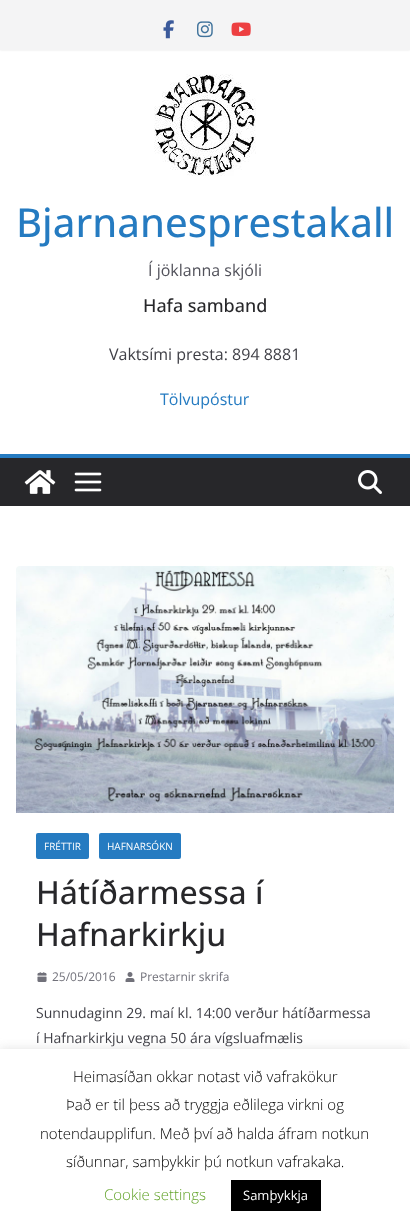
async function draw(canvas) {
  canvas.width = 410;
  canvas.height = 1228;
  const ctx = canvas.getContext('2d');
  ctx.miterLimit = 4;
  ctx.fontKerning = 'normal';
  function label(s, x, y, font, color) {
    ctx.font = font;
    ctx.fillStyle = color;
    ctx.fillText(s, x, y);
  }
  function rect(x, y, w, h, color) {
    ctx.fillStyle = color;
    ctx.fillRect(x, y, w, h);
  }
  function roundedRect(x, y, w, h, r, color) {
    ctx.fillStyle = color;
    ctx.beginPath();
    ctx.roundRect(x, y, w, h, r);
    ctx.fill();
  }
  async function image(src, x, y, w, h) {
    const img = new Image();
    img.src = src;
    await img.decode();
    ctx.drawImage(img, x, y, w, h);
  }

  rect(0, 0, 410, 1228, '#fff');
  ctx.fillStyle = '#0000001a';
  ctx.filter = 'blur(1px)';
  ctx.beginPath();
  ctx.rect(0, 0, 410, 50);
  ctx.fill();
  ctx.filter = 'none';
  rect(0, 0, 410, 50, '#f4f4f5');
  await image('assets/img1.png', 163, 20, 11, 19);
  await image('assets/img2.png', 197, 21, 16, 17);
  await image('assets/img3.png', 231, 22, 20, 14);
  await image('assets/img4.png', 154, 74, 102, 102);
  label('Bjarnanesprestakall', 16, 237, '500 40px Open Sans', '#257bc1');
  label('Í jöklanna skjóli', 148, 276, '16px Open Sans', '#52525b');
  label('Hafa samband', 143, 312, '500 18px Open Sans', '#27272a');
  label('Vaktsími presta: 894 8881', 109, 360, '16px Open Sans', '#3f3f46');
  label('Tölvupóstur', 160, 405, '16px Open Sans', '#257bc1');
  rect(0, 458, 410, 48, '#27272a');
  rect(0, 454, 410, 4, '#257bc1');
  await image('assets/img5.png', 24, 470, 32, 24);
  await image('assets/img6.png', 74, 472, 28, 20);
  await image('assets/img7.png', 358, 470, 24, 24);
  await image('assets/img8.png', 16, 566, 378, 247);
  roundedRect(36, 833, 53, 26, 2, '#257bc1');
  label('FRÉTTIR', 44, 850, '10px Open Sans', '#fff');
  roundedRect(99, 833, 82, 26, 2, '#257bc1');
  label('HAFNARSÓKN', 107, 850, '10px Open Sans', '#fff');
  label('Hátíðarmessa í', 36, 904, '500 32px Open Sans', '#27272a');
  label('Hafnarkirkju', 36, 946, '500 32px Open Sans', '#27272a');
  await image('assets/img9.png', 37, 972, 10, 10);
  label('25/05/2016', 52, 981, '12px Open Sans', '#71717a');
  await image('assets/img10.png', 125, 972, 10, 10);
  label('Prestarnir skrifa', 140, 981, '12px Open Sans', '#71717a');
  label('Sunnudaginn 29. maí kl. 14:00 verður hátíðarmessa', 36, 1018, '14px Open Sans', '#3f3f46');
  label('í Hafnarkirkju vegna 50 ára vígsluafmælis', 36, 1043, '14px Open Sans', '#3f3f46');
  ctx.fillStyle = '#acabab4d';
  ctx.filter = 'blur(5px)';
  ctx.beginPath();
  ctx.rect(0, 1048, 410, 179);
  ctx.fill();
  ctx.filter = 'none';
  rect(0, 1049, 410, 179, '#fff');
  label('Heimasíðan okkar notast við vafrakökur', 73, 1082, '300 15px Open Sans', '#000');
  label('Það er til þess að tryggja eðlilega virkni og', 66, 1110, '300 15px Open Sans', '#000');
  label('notendaupplifun. Með því að halda áfram notkun', 40, 1139, '300 15px Open Sans', '#000');
  label('síðunnar, samþykkir þú notkun vafrakaka.', 66, 1167, '300 15px Open Sans', '#000');
  label('Cookie settings', 104, 1200, '300 15px Open Sans', '#62a329');
  rect(231, 1180, 90, 31, '#000');
  label('Samþykkja', 243, 1200, '13px Open Sans', '#fff');
}

draw(document.querySelector('canvas'));
